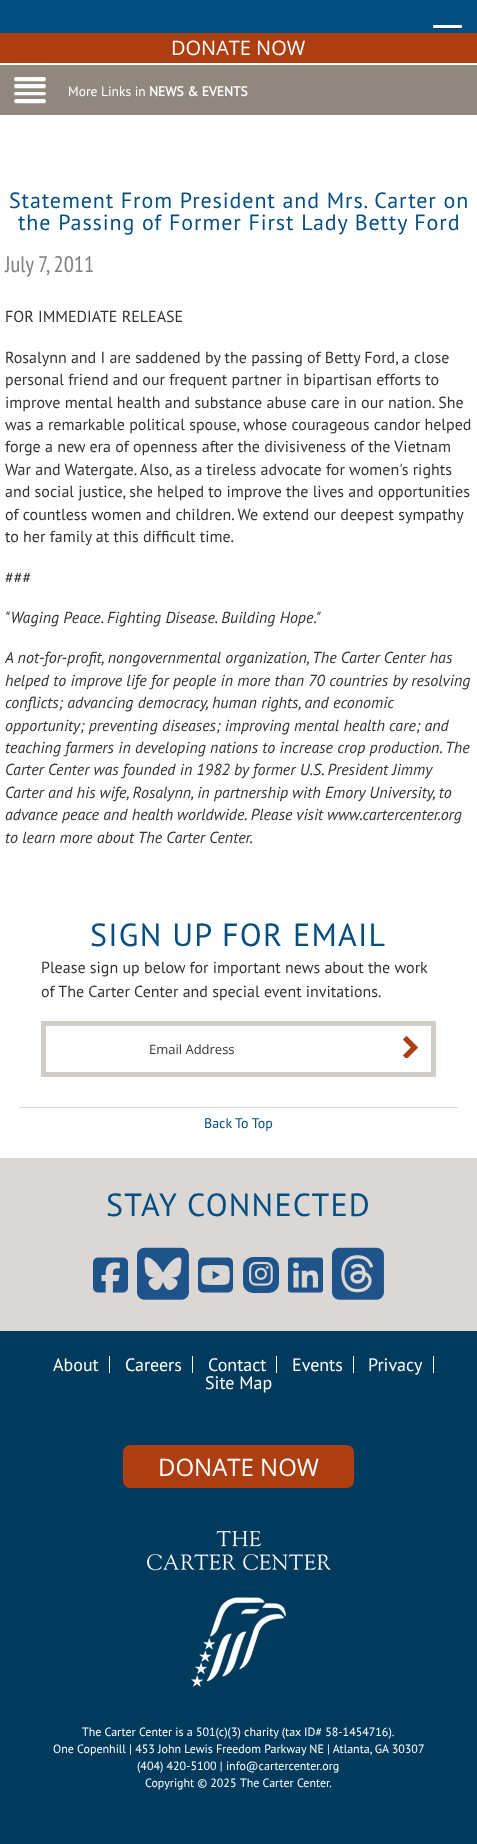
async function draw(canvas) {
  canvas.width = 477;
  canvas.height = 1844;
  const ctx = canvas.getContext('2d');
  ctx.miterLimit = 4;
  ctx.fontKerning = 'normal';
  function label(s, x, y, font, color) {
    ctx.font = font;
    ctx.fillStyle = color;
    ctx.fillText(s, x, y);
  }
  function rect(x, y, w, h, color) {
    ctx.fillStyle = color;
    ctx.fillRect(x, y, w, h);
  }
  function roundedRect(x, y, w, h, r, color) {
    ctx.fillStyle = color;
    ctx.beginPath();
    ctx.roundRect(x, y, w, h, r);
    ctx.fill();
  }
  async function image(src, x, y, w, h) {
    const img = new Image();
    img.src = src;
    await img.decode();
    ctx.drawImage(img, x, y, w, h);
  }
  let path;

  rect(0, 0, 477, 1844, '#fff');
  rect(0, 0, 477, 33, '#054e81');
  ctx.fillStyle = '#043b61';
  path = new Path2D('M433 27C433 30 435 29 438.5 29H456.5C460 29 462 30 462 27L461.5 28H433.5Z');
  ctx.fill(path);
  roundedRect(433, 25, 29, 3, 1, '#fff');
  rect(0, 33, 477, 30, '#ad3e11');
  label('DONATE NOW', 171, 55, '20px Open Sans', '#fff');
  rect(0, 65, 477, 50, '#90877f');
  ctx.fillStyle = '#aca59f';
  path = new Path2D('M14 79.5C13 83 19.5 82 20.5 82H39.5C40.5 82 47 83 46 79.5C45.5 80.5 45 81 44 81H16C15 81 14.5 80.5 14 79.5Z');
  ctx.fill(path);
  roundedRect(14, 77, 32, 4, 2, '#fff');
  ctx.fillStyle = '#aca59f';
  path = new Path2D('M14 86.5C13 90 19.5 89 20.5 89H39.5C40.5 89 47 90 46 86.5C45.5 87.5 45 88 44 88H16C15 88 14.5 87.5 14 86.5Z');
  ctx.fill(path);
  roundedRect(14, 84, 32, 4, 2, '#fff');
  label('More Links in', 68, 96, '13.5px PT Sans', '#fff');
  label('NEWS & EVENTS', 149, 96, 'bold 13.5px PT Sans', '#fff');
  ctx.fillStyle = '#aca59f';
  path = new Path2D('M14 94C13 96.5 17.5 96 20.5 96H39.5C42.5 96 47 96.5 46 94C45.5 94.5 45 95 44.5 95H15.5C15 95 14.5 94.5 14 94Z');
  ctx.fill(path);
  roundedRect(14, 92, 32, 3, 1.5, '#fff');
  ctx.fillStyle = '#aca59f';
  path = new Path2D('M14 101.5C13 105 19.5 104 20.5 104H39.5C40.5 104 47 105 46 101.5C45.5 102.5 45 103 44 103H16C15 103 14.5 102.5 14 101.5Z');
  ctx.fill(path);
  roundedRect(14, 99, 32, 4, 2, '#fff');
  ctx.letterSpacing = '0.9px';
  label('Statement From President and Mrs. Carter on', 9, 208, '22px PT Sans', '#054e81');
  label('the Passing of Former First Lady Betty Ford', 18, 230, '22px PT Sans', '#054e81');
  ctx.letterSpacing = '0px';
  label('July 7, 2011', 5, 272, '22.5px PT Sans Narrow', '#808080');
  label('FOR IMMEDIATE RELEASE', 5, 322, '16px PT Sans', '#333');
  label('Rosalynn and I are saddened by the passing of Betty Ford, a close', 5, 363, '16px PT Sans', '#333');
  label('personal friend and our frequent partner in bipartisan efforts to', 5, 385, '16px PT Sans', '#333');
  label('improve mental health and substance abuse care in our nation. She', 5, 408, '16px PT Sans', '#333');
  label('was a remarkable political spouse, whose courageous candor helped', 5, 430, '16px PT Sans', '#333');
  label('forge a new era of openness after the divisiveness of the Vietnam', 5, 452, '16px PT Sans', '#333');
  label('War and Watergate. Also, as a tireless advocate for women\'s rights', 5, 475, '16px PT Sans', '#333');
  label('and social justice, she helped to improve the lives and opportunities', 5, 497, '16px PT Sans', '#333');
  label('of countless women and children. We extend our deepest sympathy', 5, 520, '16px PT Sans', '#333');
  label('to her family at this difficult time.', 5, 542, '16px PT Sans', '#333');
  label('###', 5, 583, '16px PT Sans', '#333');
  label('"Waging Peace. Fighting Disease. Building Hope."', 5, 623, 'italic 16px PT Sans', '#333');
  label('A not-for-profit, nongovernmental organization, The Carter Center has', 5, 663, 'italic 16px PT Sans', '#333');
  label('helped to improve life for people in more than 70 countries by resolving', 5, 686, 'italic 16px PT Sans', '#333');
  label('conflicts; advancing democracy, human rights, and economic', 5, 708, 'italic 16px PT Sans', '#333');
  label('opportunity; preventing diseases; improving mental health care; and', 5, 731, 'italic 16px PT Sans', '#333');
  label('teaching farmers in developing nations to increase crop production. The', 5, 753, 'italic 16px PT Sans', '#333');
  label('Carter Center was founded in 1982 by former U.S. President Jimmy', 5, 775, 'italic 16px PT Sans', '#333');
  label('Carter and his wife, Rosalynn, in partnership with Emory University, to', 5, 798, 'italic 16px PT Sans', '#333');
  label('advance peace and health worldwide. Please visit www.cartercenter.org', 5, 820, 'italic 16px PT Sans', '#333');
  label('to learn more about The Carter Center.', 5, 843, 'italic 16px PT Sans', '#333');
  rect(19, 1107, 439, 1, '#dad9d9');
  ctx.letterSpacing = '1.25px';
  label('SIGN UP FOR EMAIL', 90, 946, '32px PT Sans', '#054e81');
  ctx.letterSpacing = '0px';
  label('Please sign up below for important news about the work', 41, 973, '16px PT Sans', '#333');
  label('of The Carter Center and special event invitations.', 41, 997, '16px PT Sans', '#333');
  ctx.strokeStyle = '#d1cdc9';
  ctx.lineWidth = 5;
  ctx.strokeRect(43.5, 1023.5, 390, 51);
  label('Email Address', 149, 1054, '13px Open Sans', '#333');
  await image('assets/img1.png', 403, 1036, 15, 22);
  label('Back To Top', 204, 1128, '14px PT Sans', '#054e81');
  rect(0, 1158, 477, 173, '#dad7d4');
  ctx.letterSpacing = '1.25px';
  label('STAY CONNECTED', 106, 1216, '32px PT Sans', '#054e81');
  await image('assets/img2.png', 93, 1257, 35, 36);
  await image('assets/img3.png', 137, 1247, 52, 53);
  await image('assets/img4.png', 198, 1257, 35, 36);
  roundedRect(243, 1257, 36, 36, 10, '#1f548a');
  await image('assets/img5.png', 249, 1261, 24, 25);
  await image('assets/img6.png', 288, 1257, 35, 36);
  await image('assets/img7.png', 332, 1247, 52, 53);
  rect(0, 1331, 477, 513, '#003a5d');
  rect(109, 1356, 1, 17, '#fff');
  ctx.letterSpacing = '0px';
  label('About', 53, 1371, '18px PT Sans', '#fff');
  rect(192, 1356, 1, 17, '#fff');
  label('Careers', 125, 1371, '18px PT Sans', '#fff');
  rect(276, 1356, 1, 17, '#fff');
  label('Contact', 208, 1371, '18px PT Sans', '#fff');
  rect(353, 1356, 1, 17, '#fff');
  label('Events', 292, 1371, '18px PT Sans', '#fff');
  rect(433, 1356, 1, 17, '#fff');
  label('Privacy', 368, 1371, '18px PT Sans', '#fff');
  label('Site Map', 205, 1389, '18px PT Sans', '#fff');
  roundedRect(123, 1445, 231, 43, 7, '#ad3e11');
  label('DONATE NOW', 158, 1476, '24px Open Sans', '#fff');
  await image('assets/img8.png', 147, 1531, 184, 156);
  label('The Carter Center is a 501(c)(3) charity (tax ID# 58-1454716).', 82, 1736, '12px PT Sans', '#fff');
  label('One Copenhill | 453 John Lewis Freedom Parkway NE | Atlanta, GA 30307', 53, 1753, '12px PT Sans', '#fff');
  label('(404) 420-5100 | info@cartercenter.org', 137, 1770, '12px PT Sans', '#fff');
  label('Copyright © 2025', 145, 1787, '12px PT Sans', '#fff');
  label('The Carter Center.', 240, 1787, '12px PT Sans', '#fff');
}

draw(document.querySelector('canvas'));
